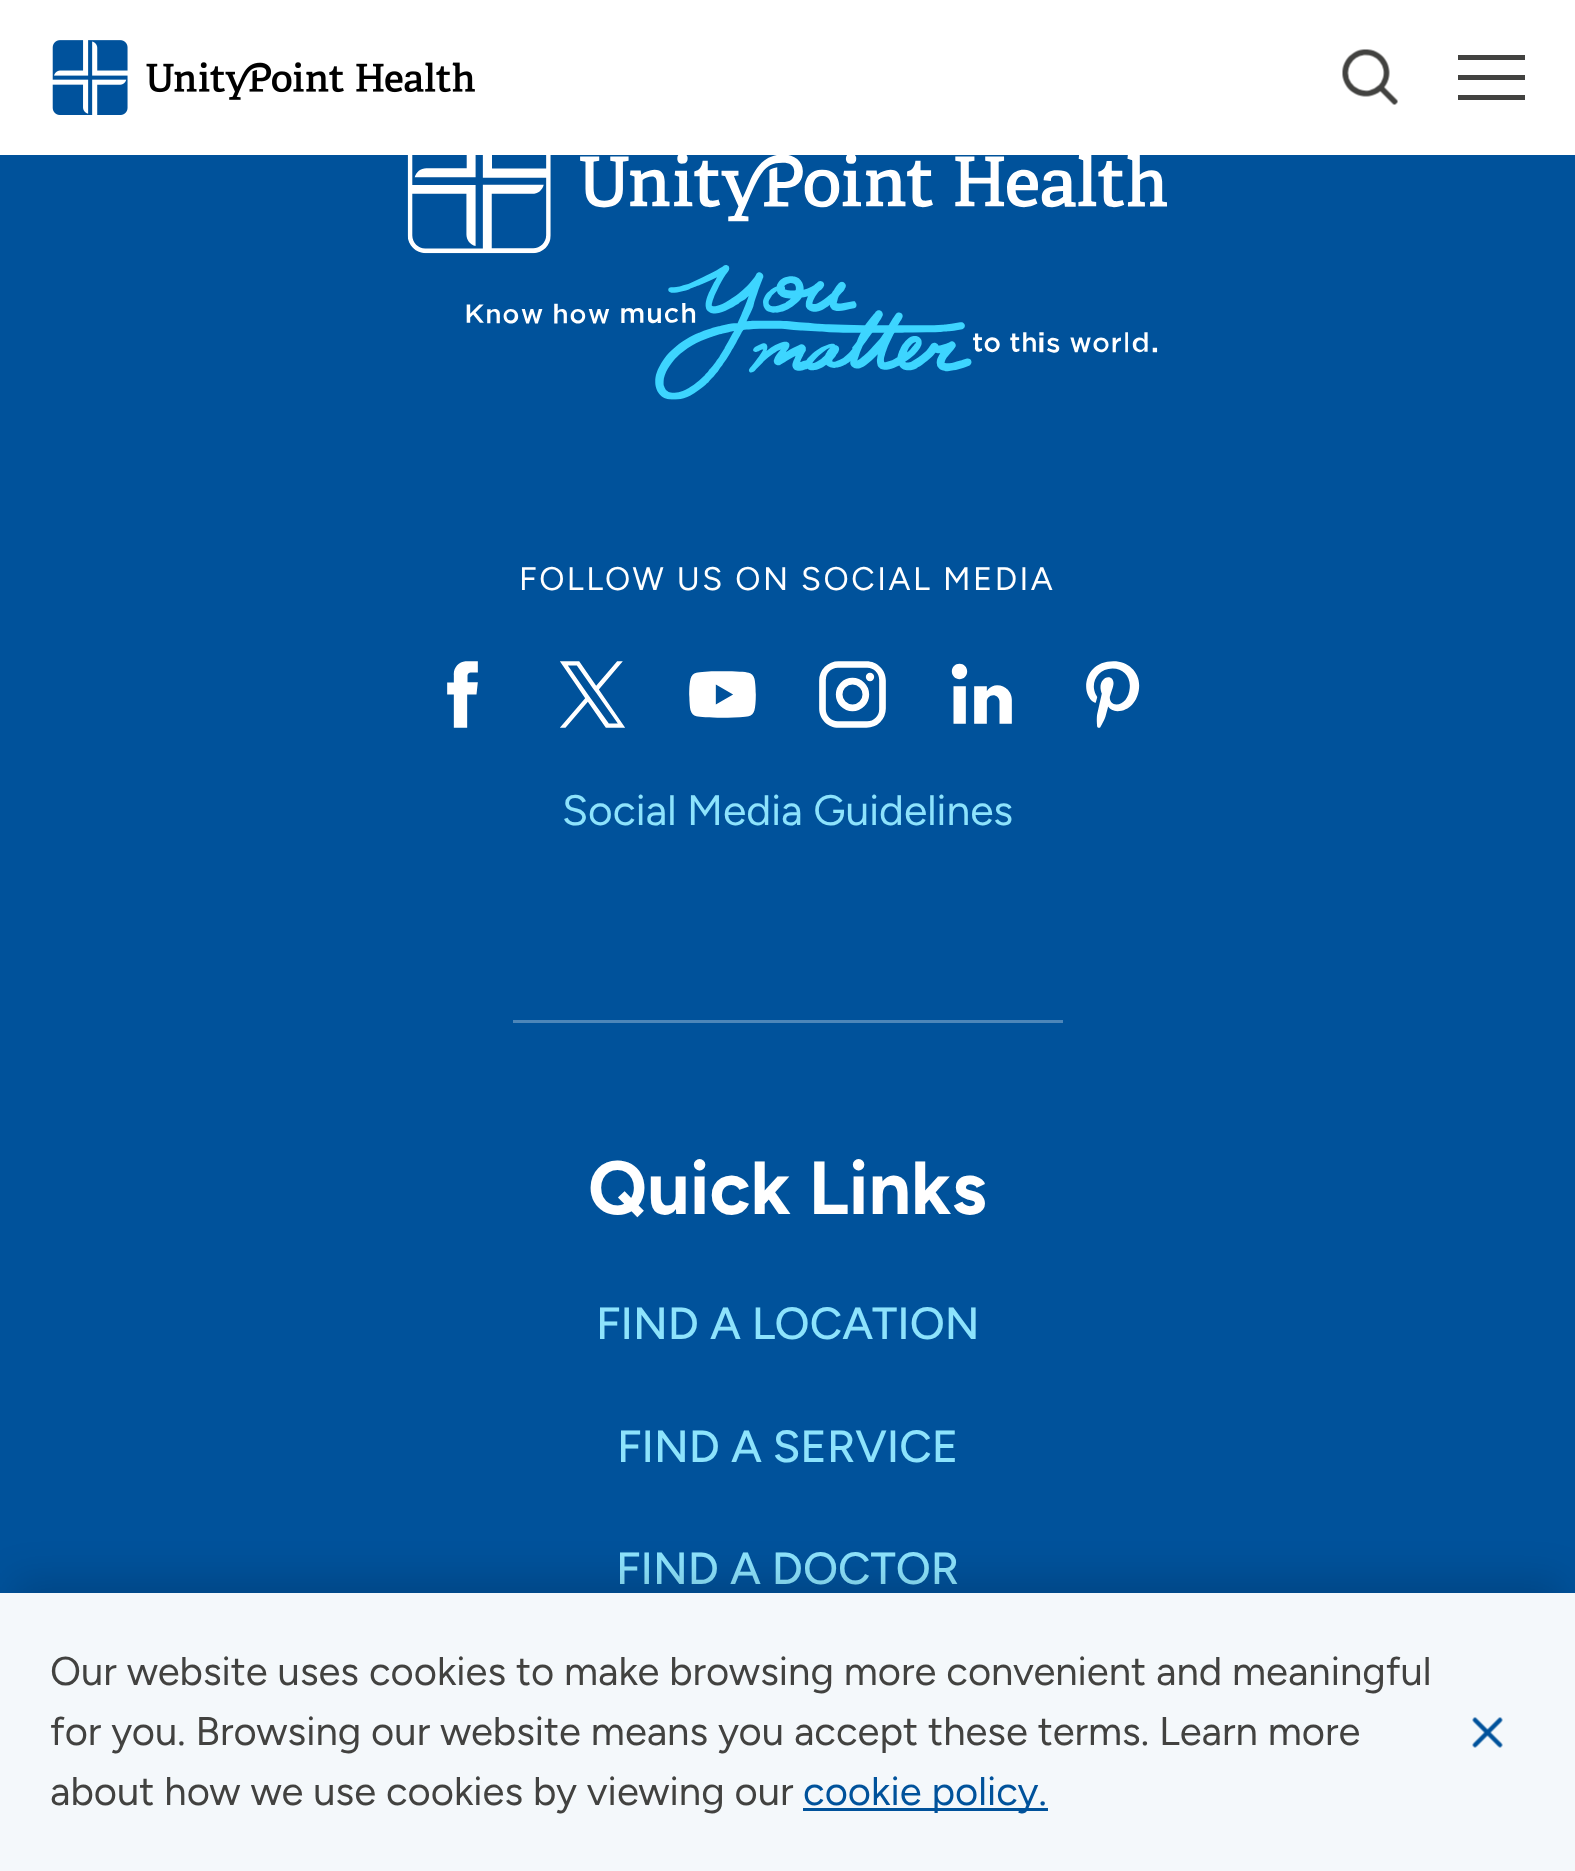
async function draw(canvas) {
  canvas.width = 1575;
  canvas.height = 1871;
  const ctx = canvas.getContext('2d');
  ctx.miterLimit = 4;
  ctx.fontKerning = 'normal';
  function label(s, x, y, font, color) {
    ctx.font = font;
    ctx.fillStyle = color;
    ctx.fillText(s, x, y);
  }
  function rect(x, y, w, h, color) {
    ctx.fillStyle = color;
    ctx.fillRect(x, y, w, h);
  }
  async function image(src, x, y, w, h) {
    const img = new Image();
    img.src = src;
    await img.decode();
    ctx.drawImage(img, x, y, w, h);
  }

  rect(0, 0, 1575, 1871, '#00529b');
  rect(0, 0, 1575, 155, '#fff');
  await image('assets/img1.png', 52, 40, 423, 75);
  await image('assets/img2.png', 1342, 49, 56, 56);
  rect(1458, 75, 67, 5, '#424240');
  rect(1458, 55, 67, 5, '#424240');
  rect(1458, 95, 67, 5, '#424240');
  await image('assets/img3.png', 407, 155, 760, 245);
  ctx.letterSpacing = '2.5px';
  label('FOLLOW US ON SOCIAL MEDIA', 519, 590, '32.5px Figtree', '#fff');
  await image('assets/img4.png', 447, 661, 31, 67);
  await image('assets/img5.png', 560, 661, 65, 67);
  await image('assets/img6.png', 689, 671, 67, 47);
  await image('assets/img7.png', 819, 661, 67, 67);
  await image('assets/img8.png', 951, 663, 61, 61);
  await image('assets/img9.png', 1086, 661, 54, 67);
  ctx.letterSpacing = '0px';
  label('Social Media Guidelines', 562, 825, '42.5px Figtree', '#8de3fc');
  rect(513, 1020, 550, 3, '#4d86b9');
  label('Quick Links', 588, 1214, 'bold 75px Figtree', '#fff');
  label('FIND A LOCATION', 596, 1339, '500 45px Figtree', '#8de3fc');
  label('FIND A SERVICE', 617, 1462, '500 45px Figtree', '#8de3fc');
  label('FIND A DOCTOR', 616, 1584, '500 45px Figtree', '#8de3fc');
  ctx.fillStyle = '#00000026';
  ctx.filter = 'blur(19px)';
  ctx.beginPath();
  ctx.rect(13, 1580, 1550, 255);
  ctx.fill();
  ctx.filter = 'none';
  rect(0, 1593, 1575, 278, '#f4f8fb');
  label('Our website uses cookies to make browsing more convenient and meaningful', 50, 1685, '40px Figtree', '#424240');
  label('for you. Browsing our website means you accept these terms. Learn more', 50, 1745, '40px Figtree', '#424240');
  label('about how we use cookies by viewing our', 50, 1805, '40px Figtree', '#424240');
  rect(803, 1808, 245, 3, '#00529b');
  label('cookie policy.', 803, 1805, '40px Figtree', '#00529b');
  await image('assets/img10.png', 1472, 1717, 31, 31);
}

draw(document.querySelector('canvas'));
